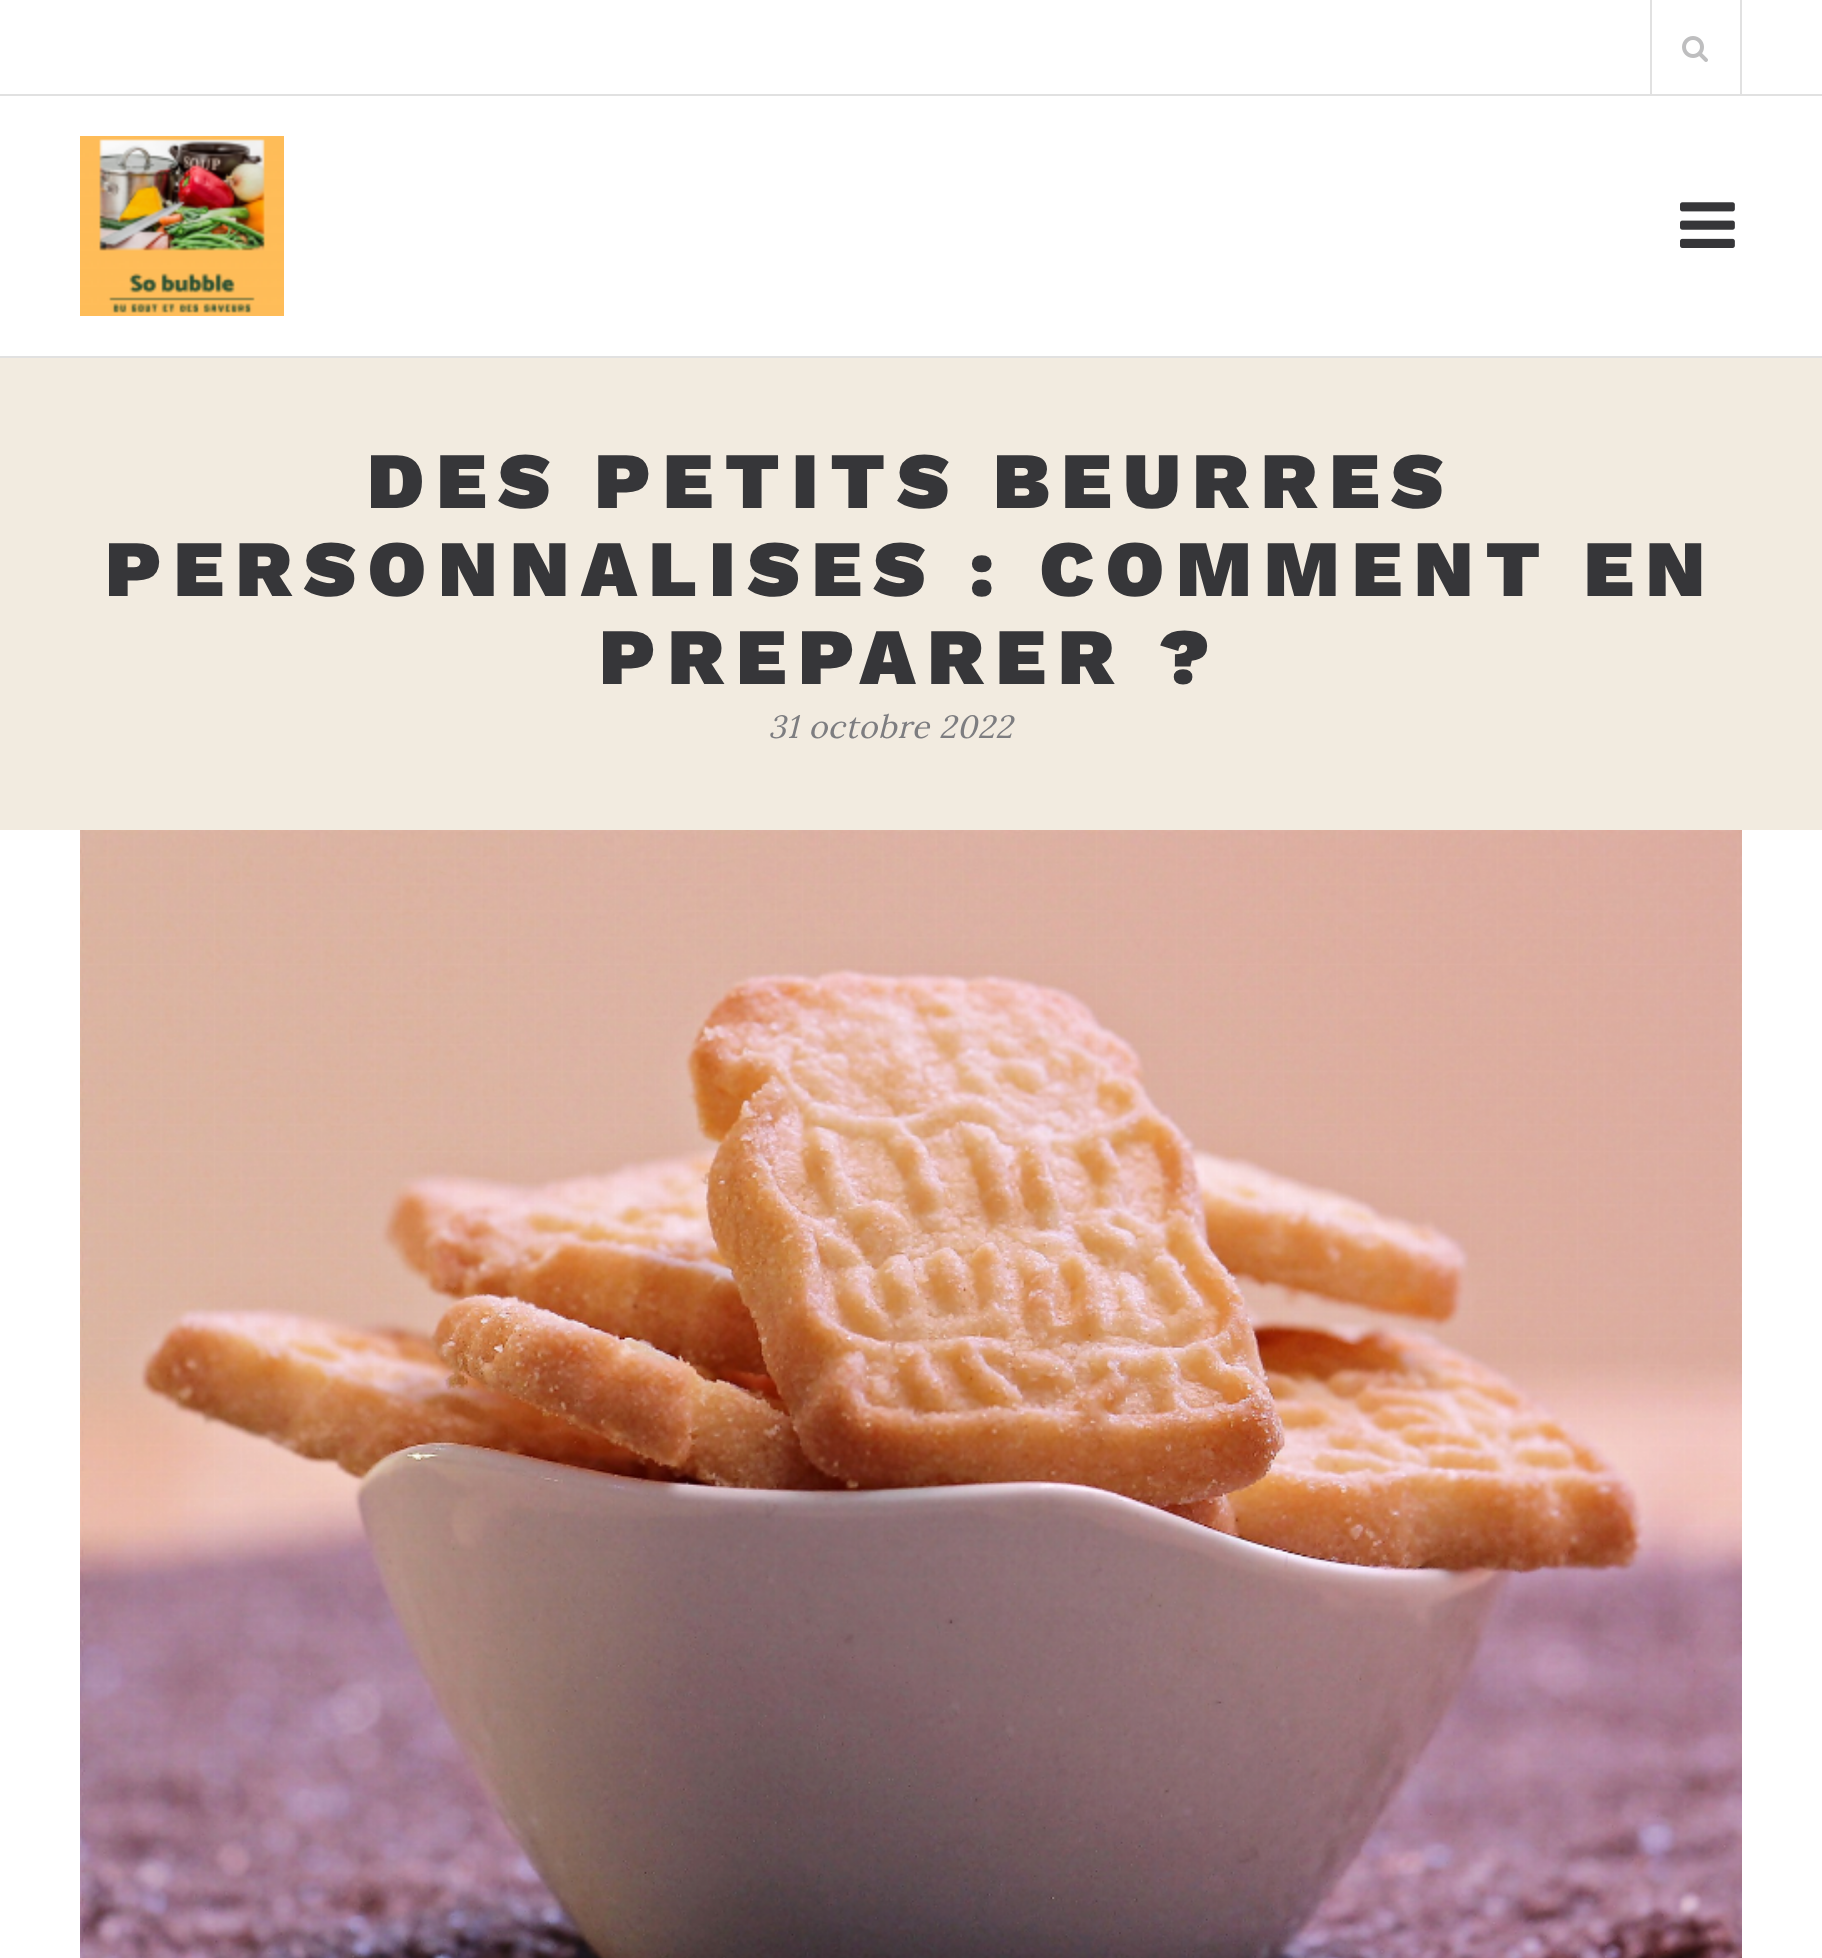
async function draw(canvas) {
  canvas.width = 1822;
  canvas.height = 1958;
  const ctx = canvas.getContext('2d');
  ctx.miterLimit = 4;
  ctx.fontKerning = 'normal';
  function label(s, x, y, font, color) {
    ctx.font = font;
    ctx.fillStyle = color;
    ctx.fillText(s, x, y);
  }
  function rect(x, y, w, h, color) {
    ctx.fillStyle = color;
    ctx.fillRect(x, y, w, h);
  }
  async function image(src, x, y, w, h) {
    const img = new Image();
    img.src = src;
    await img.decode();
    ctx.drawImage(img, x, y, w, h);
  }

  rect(0, 0, 1822, 1958, '#fff');
  rect(0, 356, 1822, 2, '#e1e1e1');
  rect(0, 94, 1822, 2, '#e1e1e1');
  rect(1740, 0, 2, 94, '#e1e1e1');
  rect(1650, 0, 2, 94, '#e1e1e1');
  await image('assets/img1.png', 1682, 36, 26, 26);
  await image('assets/img2.png', 80, 136, 204, 180);
  await image('assets/img3.png', 1680, 202, 55, 46);
  rect(0, 358, 1822, 472, '#f2ebe0');
  ctx.letterSpacing = '12px';
  label('DES PETITS BEURRES', 367, 508, '900 80px Work Sans', '#363639');
  label('PERSONNALISES : COMMENT EN', 105, 596, '900 80px Work Sans', '#363639');
  label('PREPARER ?', 599, 684, '900 80px Work Sans', '#363639');
  ctx.letterSpacing = '0.75px';
  label('31 octobre 2022', 768, 738, 'italic 32px Lora', '#7d7d80');
  await image('assets/img4.png', 80, 830, 1662, 1128);
}

draw(document.querySelector('canvas'));
